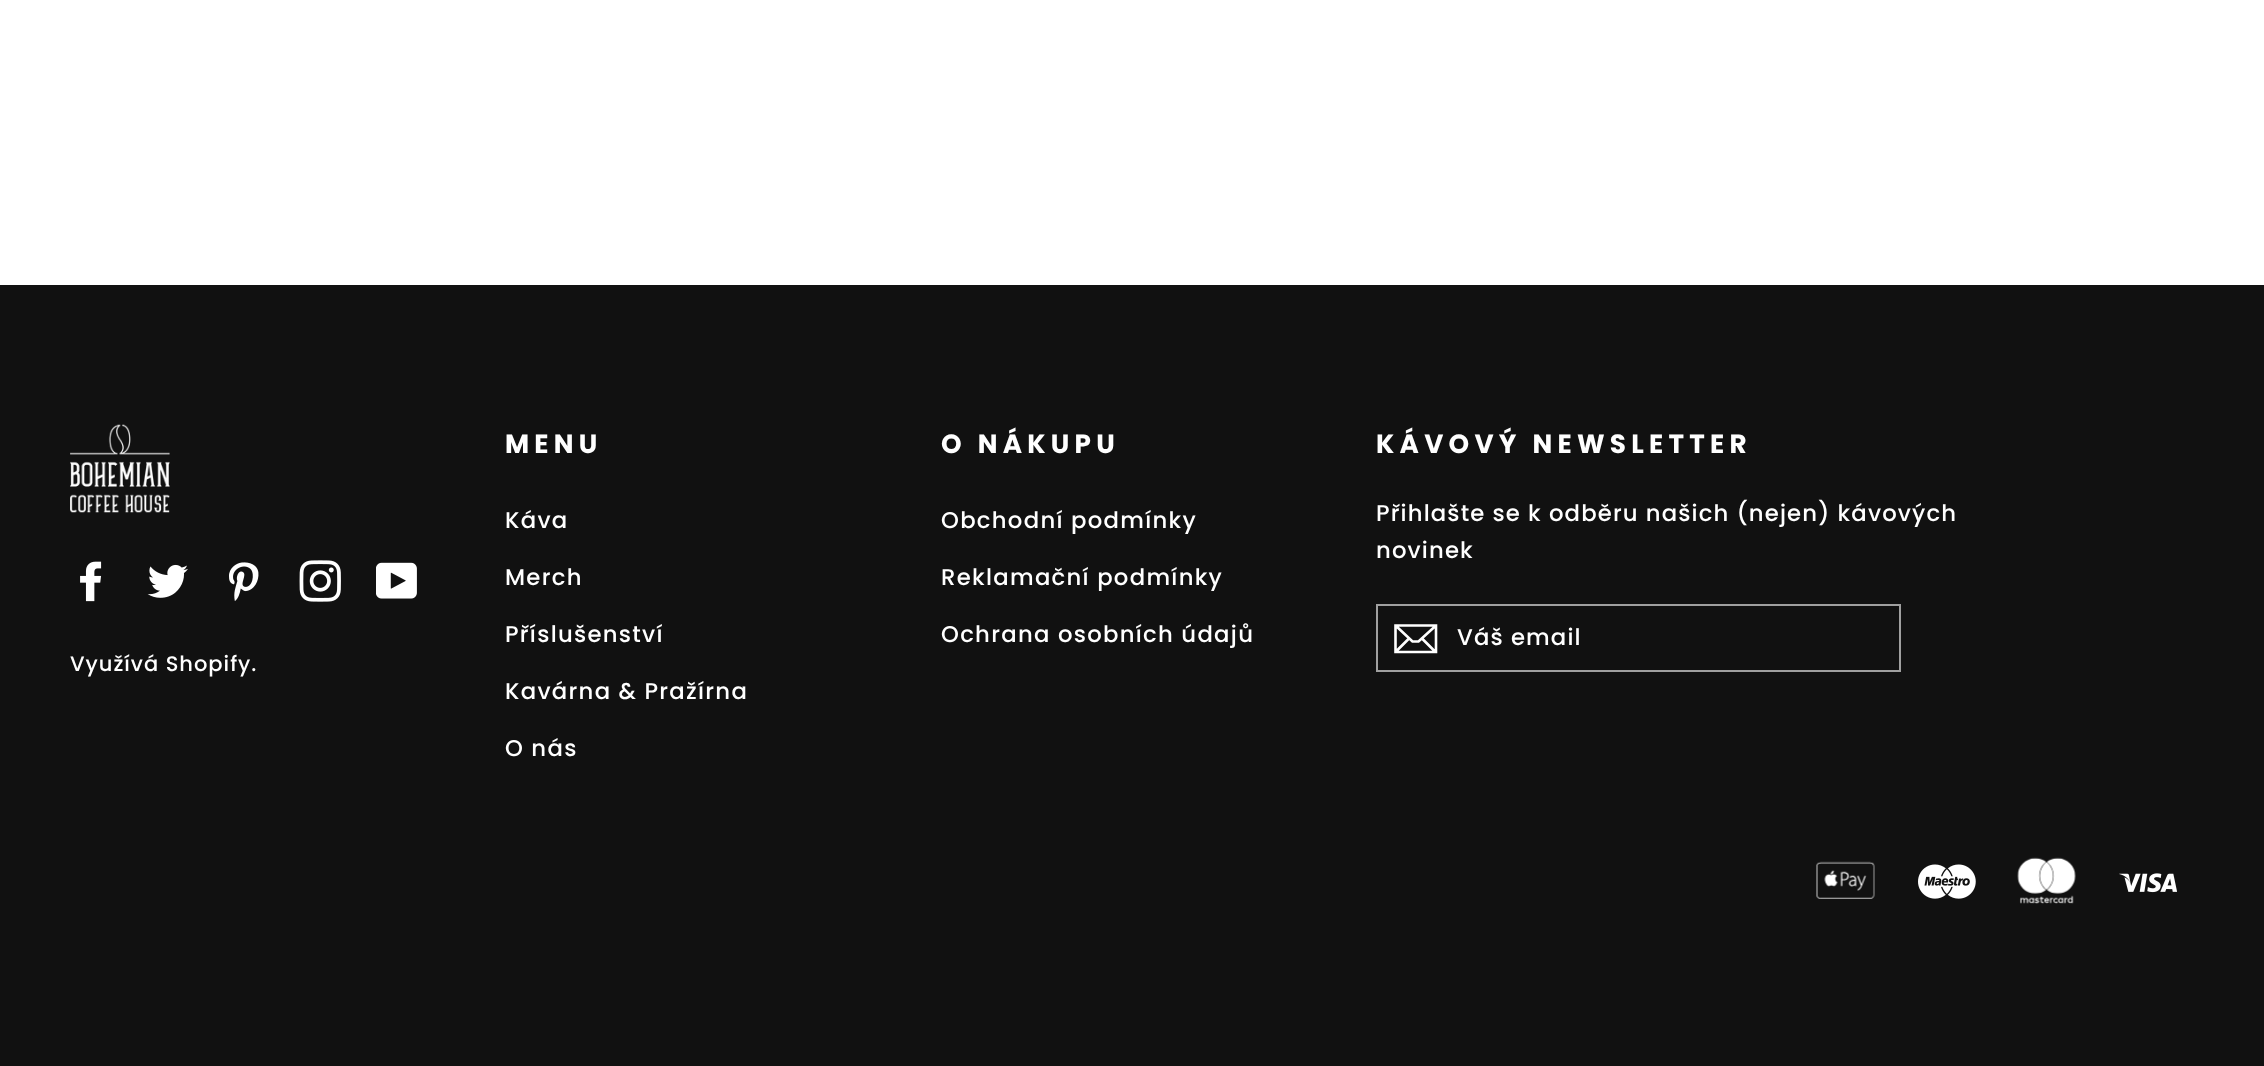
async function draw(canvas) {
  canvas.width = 2264;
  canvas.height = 1066;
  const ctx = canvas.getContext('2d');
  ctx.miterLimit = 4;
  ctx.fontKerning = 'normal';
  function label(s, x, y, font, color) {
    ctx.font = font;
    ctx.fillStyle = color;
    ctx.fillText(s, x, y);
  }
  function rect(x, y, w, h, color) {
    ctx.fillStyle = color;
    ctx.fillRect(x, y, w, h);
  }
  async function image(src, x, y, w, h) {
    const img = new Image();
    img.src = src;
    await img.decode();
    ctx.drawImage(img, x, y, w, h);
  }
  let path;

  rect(0, 0, 2264, 1066, '#fff');
  rect(0, 285, 2264, 781, '#111');
  await image('assets/img1.png', 70, 424, 100, 89);
  await image('assets/img2.png', 80, 561, 22, 41);
  await image('assets/img3.png', 147, 564, 41, 34);
  await image('assets/img4.png', 229, 562, 30, 39);
  await image('assets/img5.png', 299, 560, 42, 42);
  await image('assets/img6.png', 376, 562, 41, 37);
  ctx.letterSpacing = '1px';
  label('Využívá Shopify.', 70, 671, '500 21px Poppins', '#fff');
  ctx.letterSpacing = '5.25px';
  label('MENU', 505, 453, 'bold 26.25px Poppins', '#fff');
  ctx.letterSpacing = '1.3px';
  label('Káva', 505, 528, '500 22.75px Poppins', '#fff');
  label('Merch', 505, 585, '500 22.75px Poppins', '#fff');
  label('Příslušenství', 505, 642, '500 22.75px Poppins', '#fff');
  label('Kavárna & Pražírna', 505, 699, '500 22.75px Poppins', '#fff');
  label('O nás', 505, 756, '500 22.75px Poppins', '#fff');
  ctx.letterSpacing = '5.25px';
  label('O NÁKUPU', 941, 453, 'bold 26.25px Poppins', '#fff');
  ctx.letterSpacing = '1.3px';
  label('Obchodní podmínky', 941, 528, '500 22.75px Poppins', '#fff');
  label('Reklamační podmínky', 941, 585, '500 22.75px Poppins', '#fff');
  label('Ochrana osobních údajů', 941, 642, '500 22.75px Poppins', '#fff');
  ctx.letterSpacing = '5.25px';
  label('KÁVOVÝ NEWSLETTER', 1376, 453, 'bold 26.25px Poppins', '#fff');
  ctx.letterSpacing = '1.15px';
  label('Přihlašte se k odběru našich (nejen) kávových', 1376, 521, '500 22.75px Poppins', '#fff');
  label('novinek', 1376, 558, '500 22.75px Poppins', '#fff');
  ctx.strokeStyle = '#a0a0a0';
  ctx.lineWidth = 2;
  ctx.strokeRect(1377, 605, 523, 66);
  path = new Path2D('M1436 652H1395.5V625.5H1436ZM1395.5 625.5L1412.5 641.5H1418.5L1436 625.5M1409 638.5L1396 651.5M1435.5 652L1422 638.5');
  ctx.strokeStyle = '#fff';
  ctx.lineWidth = 2.6;
  ctx.stroke(path);
  label('Váš email', 1457, 645, '500 22.75px Poppins', '#fff');
  await image('assets/img7.png', 1816, 861, 59, 38);
  await image('assets/img8.png', 1918, 864, 58, 35);
  await image('assets/img9.png', 2017, 857, 59, 47);
  await image('assets/img10.png', 2119, 873, 58, 20);
}

draw(document.querySelector('canvas'));
